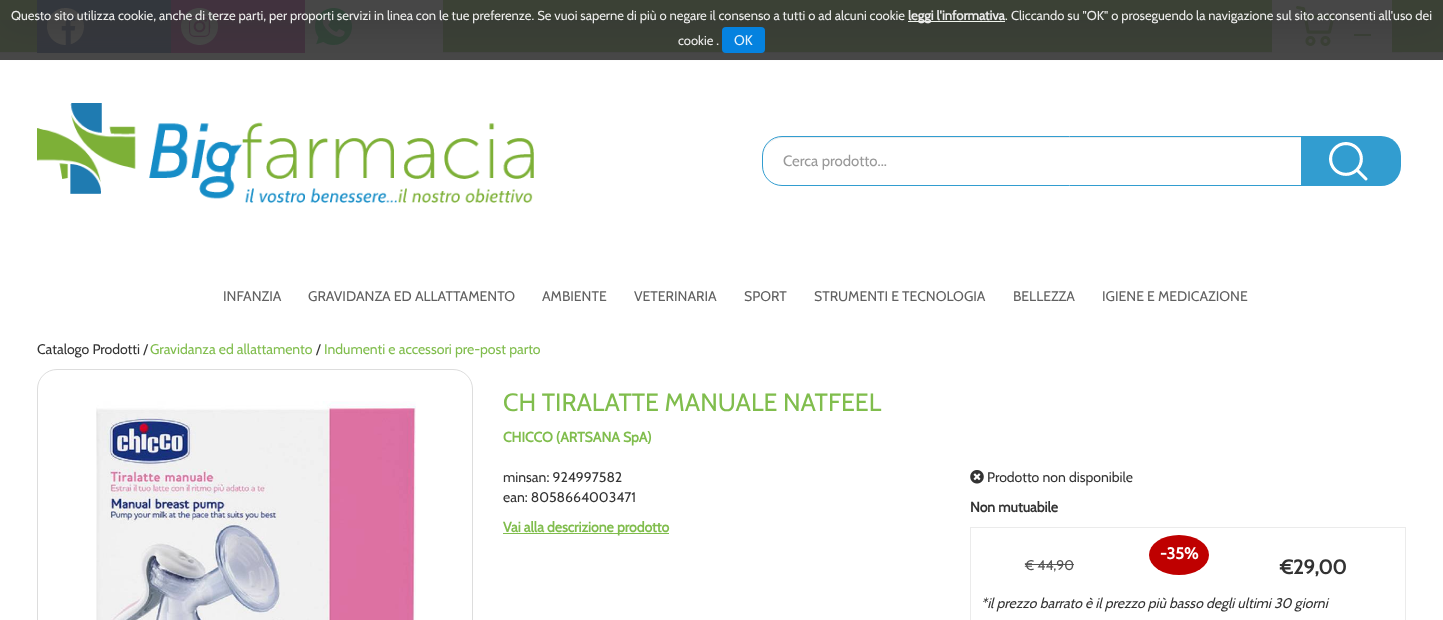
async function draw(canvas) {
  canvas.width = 1443;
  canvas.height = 620;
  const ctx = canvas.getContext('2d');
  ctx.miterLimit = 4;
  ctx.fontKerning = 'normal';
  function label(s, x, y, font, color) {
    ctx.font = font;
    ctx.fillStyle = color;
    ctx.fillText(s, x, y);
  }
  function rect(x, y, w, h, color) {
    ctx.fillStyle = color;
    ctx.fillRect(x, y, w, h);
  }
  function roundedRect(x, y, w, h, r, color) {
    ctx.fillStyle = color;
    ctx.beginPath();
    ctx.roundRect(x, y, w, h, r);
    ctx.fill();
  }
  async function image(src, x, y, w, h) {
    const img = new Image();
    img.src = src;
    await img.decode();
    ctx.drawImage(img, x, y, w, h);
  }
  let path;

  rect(0, 0, 1443, 620, '#fff');
  rect(0, 0, 1443, 52, '#80bd4d');
  rect(0, 52, 1443, 1, '#ebebeb');
  rect(37, 0, 134, 53, '#3b5998');
  await image('assets/img1.png', 47, 8, 37, 37);
  rect(171, 0, 134, 53, '#c32aa3');
  await image('assets/img2.png', 181, 8, 37, 37);
  rect(305, 0, 138, 53, '#fff');
  await image('assets/img3.png', 315, 8, 37, 37);
  rect(1272, 0, 120, 53, '#fff');
  await image('assets/img4.png', 1296, 6, 39, 40);
  rect(1354, 34, 17, 2, '#80bd4d');
  ctx.save();
  ctx.beginPath();
  ctx.rect(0, 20, 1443, 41);
  ctx.clip();
  ctx.fillStyle = '#444';
  ctx.filter = 'blur(20px)';
  ctx.beginPath();
  ctx.rect(0, 0, 1443, 20);
  ctx.fill();
  ctx.filter = 'none';
  ctx.restore();
  rect(0, 0, 1443, 60, '#333333e6');
  label('Questo sito utilizza cookie, anche di terze parti, per proporti servizi in linea con le tue preferenze. Se vuoi saperne di più o negare il consenso a tutti o ad alcuni cookie', 11, 20, '13px Cabin', '#ececeb');
  rect(908, 21, 97, 1, '#f0f4ed');
  label('leggi l\'informativa', 908, 20, 'bold 13px Cabin', '#ececeb');
  label('.', 1005, 20, '13px Cabin', '#f2f8ed');
  label('Cliccando su "OK" o proseguendo la navigazione sul sito acconsenti all\'uso dei', 1011, 20, '13px Cabin', '#ececeb');
  label('cookie .', 678, 45, '13px Cabin', '#ececeb');
  roundedRect(722, 27, 43, 26, 4, '#0089f2e6');
  label('OK', 734, 45, '14px Cabin', '#e6f2fc');
  await image('assets/img5.png', 37, 103, 497, 100);
  ctx.fillStyle = '#ececec';
  path = new Path2D('M782 138H1357C1367 138 1376 147 1376 157V156C1376 146 1367 137 1357 137H782C772 137 763 146 763 156V157C763 147 772 138 782 138Z');
  ctx.fill(path);
  ctx.beginPath();
  ctx.roundRect(762.5, 136.5, 614, 49, 19.5);
  ctx.strokeStyle = '#329dd0';
  ctx.stroke();
  label('Cerca prodotto...', 783, 166, '15px Cabin', '#999');
  ctx.fillStyle = '#329dd0';
  ctx.beginPath();
  ctx.roundRect(1301, 136, 100, 50, [0, 20, 20, 0]);
  ctx.fill();
  await image('assets/img6.png', 1329, 142, 39, 39);
  label('INFANZIA', 223, 301, '14px Cabin', '#616161');
  label('GRAVIDANZA ED ALLATTAMENTO', 308, 301, '14px Cabin', '#616161');
  label('AMBIENTE', 542, 301, '14px Cabin', '#616161');
  label('VETERINARIA', 634, 301, '14px Cabin', '#616161');
  label('SPORT', 744, 301, '14px Cabin', '#616161');
  label('STRUMENTI E TECNOLOGIA', 814, 301, '14px Cabin', '#616161');
  label('BELLEZZA', 1013, 301, '14px Cabin', '#616161');
  label('IGIENE E MEDICAZIONE', 1102, 301, '14px Cabin', '#616161');
  label('Catalogo Prodotti /', 37, 354, '14px Cabin', '#333');
  label('Gravidanza ed allattamento', 150, 354, '14px Cabin', '#80bd4d');
  label('/', 316, 354, '14px Cabin', '#333');
  label('Indumenti e accessori pre-post parto', 324, 354, '14px Cabin', '#80bd4d');
  ctx.beginPath();
  ctx.roundRect(37.5, 369.5, 435, 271, 19.5);
  ctx.strokeStyle = '#ddd';
  ctx.stroke();
  await image('assets/img7.png', 96, 401, 320, 219);
  label('CH TIRALATTE MANUALE NATFEEL', 503, 411, '25px Cabin', '#80bd4d');
  label('CHICCO (ARTSANA SpA)', 503, 442, 'bold 14px Cabin', '#80bd4d');
  label('minsan: 924997582', 503, 482, '14px Cabin', '#333');
  label('ean: 8058664003471', 503, 502, '14px Cabin', '#333');
  rect(503, 533, 166, 1, '#80bd4d');
  label('Vai alla descrizione prodotto', 503, 532, 'bold 14px Cabin', '#80bd4d');
  await image('assets/img8.png', 970, 470, 14, 14);
  label('Prodotto non disponibile', 987, 482, '14px Cabin', '#333');
  label('Non mutuabile', 970, 512, 'bold 14px Cabin', '#333');
  ctx.strokeStyle = '#ebebeb';
  ctx.strokeRect(970.5, 527.5, 435, 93);
  ctx.fillStyle = '#bf0000';
  ctx.beginPath();
  ctx.ellipse(1179, 555, 30, 20, 0, 0, 2 * Math.PI);
  ctx.fill();
  label('-35%', 1160, 559, 'bold 16px Cabin', '#fff');
  label('€ 44,90', 1025, 570, '14px Cabin', '#535353');
  rect(1025, 564, 49, 1, '#535353');
  label('€29,00', 1280, 574, 'bold 20px Cabin', '#333');
  label('*il prezzo barrato è il prezzo più basso degli ultimi 30 giorni', 981, 608, 'italic 14px Cabin', '#333');
}

draw(document.querySelector('canvas'));
